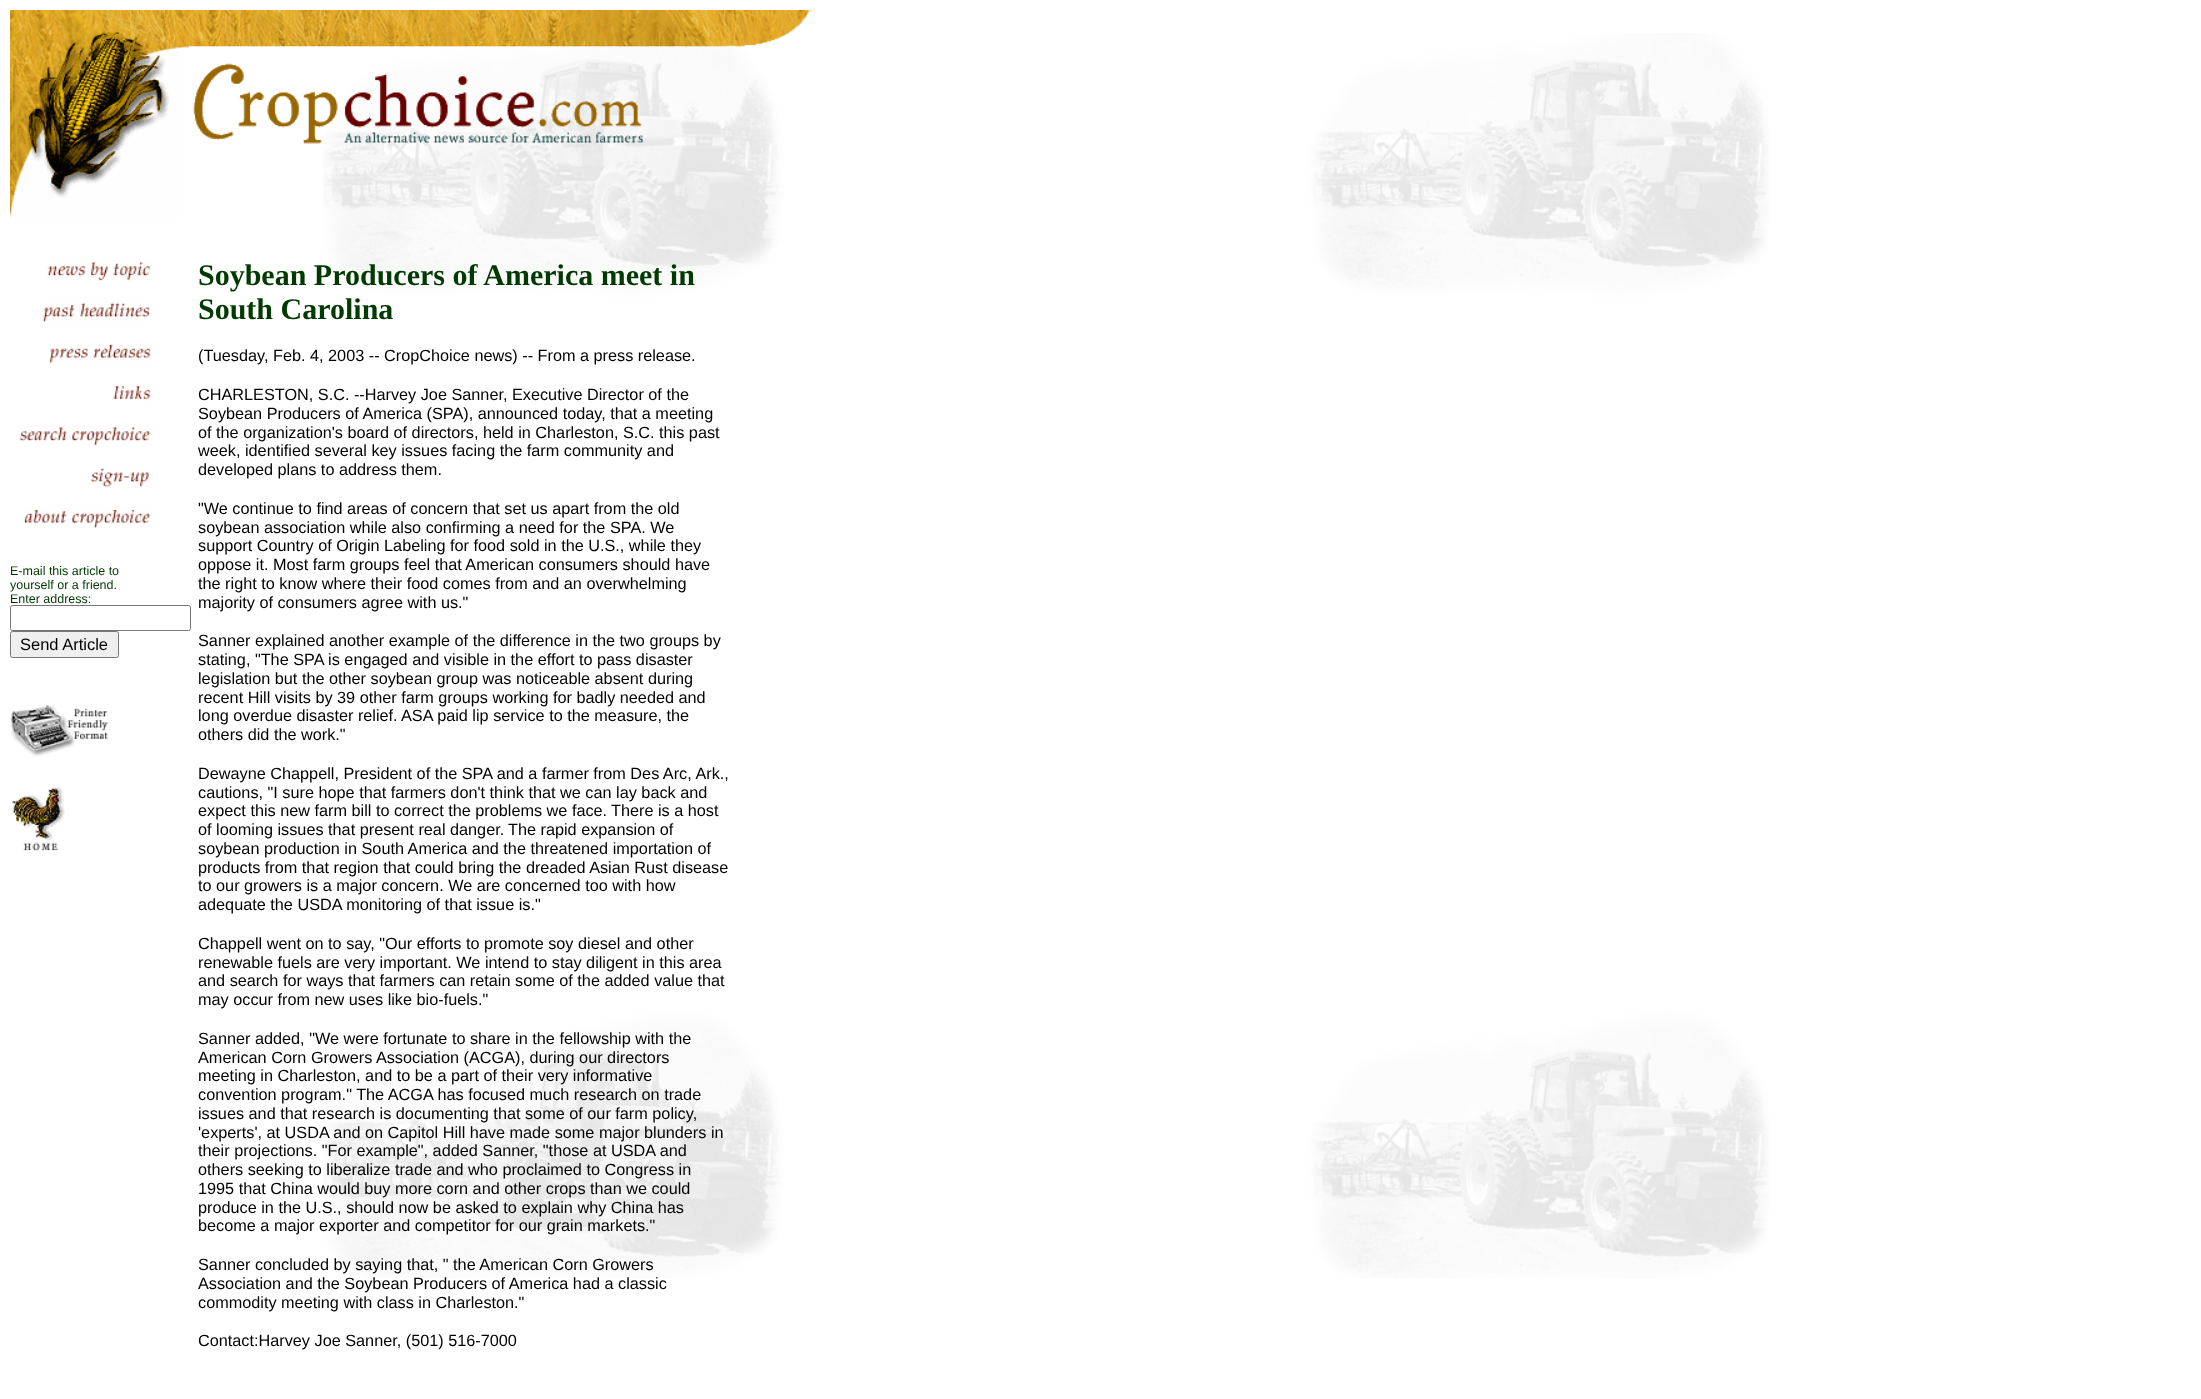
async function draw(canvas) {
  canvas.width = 2201;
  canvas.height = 1399;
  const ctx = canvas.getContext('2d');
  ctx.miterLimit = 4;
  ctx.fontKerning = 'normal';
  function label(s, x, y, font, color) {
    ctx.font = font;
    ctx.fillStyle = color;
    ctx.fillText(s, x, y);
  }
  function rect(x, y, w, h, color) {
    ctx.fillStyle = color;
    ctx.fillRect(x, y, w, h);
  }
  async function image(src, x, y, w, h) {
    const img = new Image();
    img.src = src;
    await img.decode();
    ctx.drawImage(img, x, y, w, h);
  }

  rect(0, 0, 2201, 1399, '#fff');
  await image('assets/img1.png', 323, 33, 1446, 1245);
  await image('assets/img2.png', 10, 10, 170, 208);
  await image('assets/img3.png', 180, 10, 632, 134);
  await image('assets/img4.png', 47, 261, 104, 20);
  await image('assets/img5.png', 43, 302, 107, 20);
  await image('assets/img6.png', 49, 343, 102, 20);
  await image('assets/img7.png', 113, 385, 38, 16);
  await image('assets/img8.png', 19, 426, 132, 20);
  await image('assets/img9.png', 91, 468, 58, 19);
  await image('assets/img10.png', 24, 508, 127, 20);
  label('E-mail this article to', 10, 575, '12.5px Liberation Sans', '#003a00');
  label('yourself or a friend.', 10, 589, '12.5px Liberation Sans', '#003a00');
  label('Enter address:', 10, 603, '12.5px Liberation Sans', '#003a00');
  ctx.beginPath();
  ctx.roundRect(10.5, 605.5, 180, 25, 2);
  ctx.strokeStyle = '#767676';
  ctx.stroke();
  ctx.fillStyle = '#efefef';
  ctx.beginPath();
  ctx.roundRect(10.5, 631.5, 108, 26, 2);
  ctx.fill();
  ctx.stroke();
  label('Send Article', 20, 650, '16.5px Liberation Sans', '#000');
  await image('assets/img11.png', 10, 705, 98, 52);
  await image('assets/img12.png', 12, 786, 53, 66);
  label('Soybean Producers of America meet in', 198, 285, 'bold 30px Liberation Serif', '#003a00');
  label('South Carolina', 198, 319, 'bold 30px Liberation Serif', '#003a00');
  label('(Tuesday, Feb. 4, 2003 -- CropChoice news) -- From a press release.', 198, 361, '16.25px Liberation Sans', '#000');
  label('CHARLESTON, S.C. --Harvey Joe Sanner, Executive Director of the', 198, 400, '16.25px Liberation Sans', '#000');
  label('Soybean Producers of America (SPA), announced today, that a meeting', 198, 419, '16.25px Liberation Sans', '#000');
  label('of the organization\'s board of directors, held in Charleston, S.C. this past', 198, 438, '16.25px Liberation Sans', '#000');
  label('week, identified several key issues facing the farm community and', 198, 456, '16.25px Liberation Sans', '#000');
  label('developed plans to address them.', 198, 475, '16.25px Liberation Sans', '#000');
  label('"We continue to find areas of concern that set us apart from the old', 198, 514, '16.25px Liberation Sans', '#000');
  label('soybean association while also confirming a need for the SPA. We', 198, 533, '16.25px Liberation Sans', '#000');
  label('support Country of Origin Labeling for food sold in the U.S., while they', 198, 551, '16.25px Liberation Sans', '#000');
  label('oppose it. Most farm groups feel that American consumers should have', 198, 570, '16.25px Liberation Sans', '#000');
  label('the right to know where their food comes from and an overwhelming', 198, 589, '16.25px Liberation Sans', '#000');
  label('majority of consumers agree with us."', 198, 608, '16.25px Liberation Sans', '#000');
  label('Sanner explained another example of the difference in the two groups by', 198, 646, '16.25px Liberation Sans', '#000');
  label('stating, "The SPA is engaged and visible in the effort to pass disaster', 198, 665, '16.25px Liberation Sans', '#000');
  label('legislation but the other soybean group was noticeable absent during', 198, 684, '16.25px Liberation Sans', '#000');
  label('recent Hill visits by 39 other farm groups working for badly needed and', 198, 703, '16.25px Liberation Sans', '#000');
  label('long overdue disaster relief.', 198, 721, '16.25px Liberation Sans', '#000');
  label('ASA paid lip service to the measure, the', 401, 721, '16.25px Liberation Sans', '#000');
  label('others did the work."', 198, 740, '16.25px Liberation Sans', '#000');
  label('Dewayne Chappell, President of the SPA and a farmer from Des Arc, Ark.,', 198, 779, '16.25px Liberation Sans', '#000');
  label('cautions, "I sure hope that farmers don\'t think that we can lay back and', 198, 798, '16.25px Liberation Sans', '#000');
  label('expect this new farm bill to correct the problems we face.', 198, 816, '16.25px Liberation Sans', '#000');
  label('There is a host', 611, 816, '16.25px Liberation Sans', '#000');
  label('of looming issues that present real danger.', 198, 835, '16.25px Liberation Sans', '#000');
  label('The rapid expansion of', 508, 835, '16.25px Liberation Sans', '#000');
  label('soybean production in South America and the threatened importation of', 198, 854, '16.25px Liberation Sans', '#000');
  label('products from that region that could bring the dreaded Asian Rust disease', 198, 873, '16.25px Liberation Sans', '#000');
  label('to our growers is a major concern. We are concerned too with how', 198, 891, '16.25px Liberation Sans', '#000');
  label('adequate the USDA monitoring of that issue is."', 198, 910, '16.25px Liberation Sans', '#000');
  label('Chappell went on to say, "Our efforts to promote soy diesel and other', 198, 949, '16.25px Liberation Sans', '#000');
  label('renewable fuels are very important. We intend to stay diligent in this area', 198, 968, '16.25px Liberation Sans', '#000');
  label('and search for ways that farmers can retain some of the added value that', 198, 986, '16.25px Liberation Sans', '#000');
  label('may occur from new uses like bio-fuels."', 198, 1005, '16.25px Liberation Sans', '#000');
  label('Sanner added, "We were fortunate to share in the fellowship with the', 198, 1044, '16.25px Liberation Sans', '#000');
  label('American Corn Growers Association (ACGA), during our directors', 198, 1063, '16.25px Liberation Sans', '#000');
  label('meeting in Charleston, and to be a part of their very informative', 198, 1081, '16.25px Liberation Sans', '#000');
  label('convention program." The ACGA has focused much research on trade', 198, 1100, '16.25px Liberation Sans', '#000');
  label('issues and that research is documenting that some of our farm policy,', 198, 1119, '16.25px Liberation Sans', '#000');
  label('\'experts\', at USDA and on Capitol Hill have made some major blunders in', 198, 1138, '16.25px Liberation Sans', '#000');
  label('their projections. "For example", added Sanner, "those at USDA and', 198, 1156, '16.25px Liberation Sans', '#000');
  label('others seeking to liberalize trade and who proclaimed to Congress in', 198, 1175, '16.25px Liberation Sans', '#000');
  label('1995 that China would buy more corn and other crops than we could', 198, 1194, '16.25px Liberation Sans', '#000');
  label('produce in the U.S., should now be asked to explain why China has', 198, 1213, '16.25px Liberation Sans', '#000');
  label('become a major exporter and competitor for our grain markets."', 198, 1231, '16.25px Liberation Sans', '#000');
  label('Sanner concluded by saying that, " the American Corn Growers', 198, 1270, '16.25px Liberation Sans', '#000');
  label('Association and the Soybean Producers of America had a classic', 198, 1289, '16.25px Liberation Sans', '#000');
  label('commodity meeting with class in Charleston."', 198, 1308, '16.25px Liberation Sans', '#000');
  label('Contact:Harvey Joe Sanner, (501) 516-7000', 198, 1346, '16.25px Liberation Sans', '#000');
}

draw(document.querySelector('canvas'));
